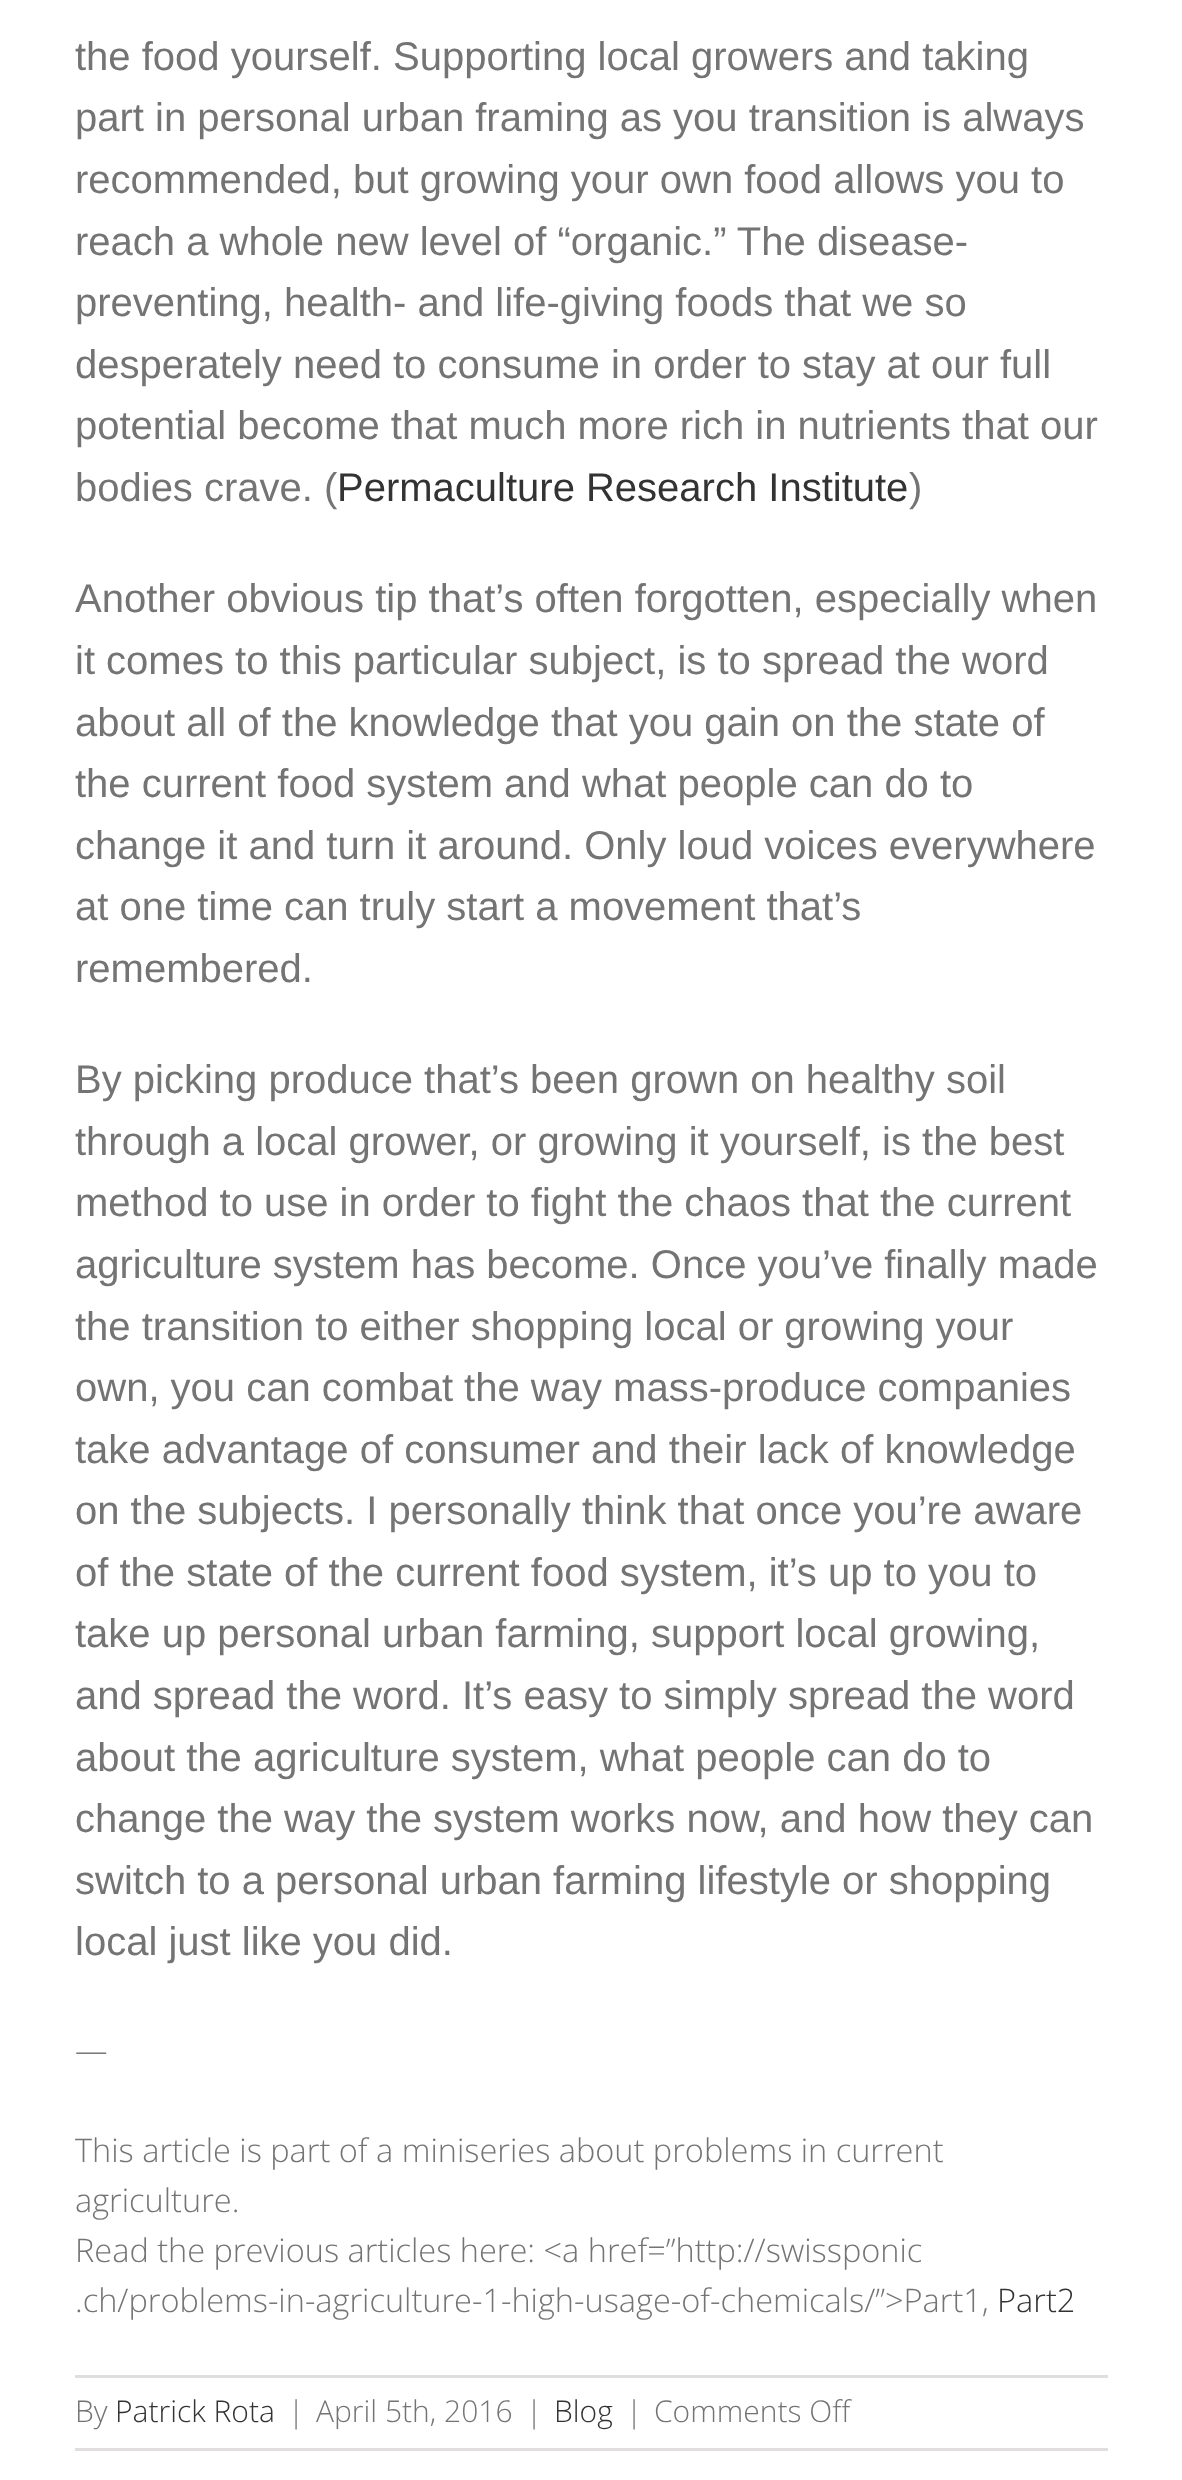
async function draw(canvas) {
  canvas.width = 1182;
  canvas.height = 2480;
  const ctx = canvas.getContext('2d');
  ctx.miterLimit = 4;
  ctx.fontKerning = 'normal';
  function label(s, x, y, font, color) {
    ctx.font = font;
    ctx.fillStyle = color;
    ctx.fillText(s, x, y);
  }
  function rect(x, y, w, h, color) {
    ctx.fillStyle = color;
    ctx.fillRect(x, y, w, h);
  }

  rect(0, 0, 1182, 2480, '#fff');
  label('the food yourself. Supporting local growers and taking', 75, 70, '40px Liberation Sans', '#747474');
  label('part in personal urban framing as you transition is always', 75, 131, '40px Liberation Sans', '#747474');
  label('recommended, but growing your own food allows you to', 75, 193, '40px Liberation Sans', '#747474');
  label('reach a whole new level of “organic.” The disease-', 75, 255, '40px Liberation Sans', '#747474');
  label('preventing, health- and life-giving foods that we so', 75, 316, '40px Liberation Sans', '#747474');
  label('desperately need to consume in order to stay at our full', 75, 378, '40px Liberation Sans', '#747474');
  label('potential become that much more rich in nutrients that our', 75, 439, '40px Liberation Sans', '#747474');
  label('bodies crave. (', 75, 501, '40px Liberation Sans', '#747474');
  label('Permaculture Research Institute', 337, 501, '40px Liberation Sans', '#333');
  label(')', 909, 501, '40px Liberation Sans', '#747474');
  label('Another obvious tip that’s often forgotten, especially when', 75, 612, '40px Liberation Sans', '#747474');
  label('it comes to this particular subject, is to spread the word', 75, 674, '40px Liberation Sans', '#747474');
  label('about all of the knowledge that you gain on the state of', 75, 736, '40px Liberation Sans', '#747474');
  label('the current food system and what people can do to', 75, 797, '40px Liberation Sans', '#747474');
  label('change it and turn it around. Only loud voices everywhere', 75, 859, '40px Liberation Sans', '#747474');
  label('at one time can truly start a movement that’s', 75, 920, '40px Liberation Sans', '#747474');
  label('remembered.', 75, 982, '40px Liberation Sans', '#747474');
  label('By picking produce that’s been grown on healthy soil', 75, 1093, '40px Liberation Sans', '#747474');
  label('through a local grower, or growing it yourself, is the best', 75, 1155, '40px Liberation Sans', '#747474');
  label('method to use in order to fight the chaos that the current', 75, 1216, '40px Liberation Sans', '#747474');
  label('agriculture system has become. Once you’ve finally made', 75, 1278, '40px Liberation Sans', '#747474');
  label('the transition to either shopping local or growing your', 75, 1340, '40px Liberation Sans', '#747474');
  label('own, you can combat the way mass-produce companies', 75, 1401, '40px Liberation Sans', '#747474');
  label('take advantage of consumer and their lack of knowledge', 75, 1463, '40px Liberation Sans', '#747474');
  label('on the subjects. I personally think that once you’re aware', 75, 1524, '40px Liberation Sans', '#747474');
  label('of the state of the current food system, it’s up to you to', 75, 1586, '40px Liberation Sans', '#747474');
  label('take up personal urban farming, support local growing,', 75, 1647, '40px Liberation Sans', '#747474');
  label('and spread the word. It’s easy to simply spread the word', 75, 1709, '40px Liberation Sans', '#747474');
  label('about the agriculture system, what people can do to', 75, 1771, '40px Liberation Sans', '#747474');
  label('change the way the system works now, and how they can', 75, 1832, '40px Liberation Sans', '#747474');
  label('switch to a personal urban farming lifestyle or shopping', 75, 1894, '40px Liberation Sans', '#747474');
  label('local just like you did.', 75, 1955, '40px Liberation Sans', '#747474');
  label('—', 75, 2062, '300 32.5px Open Sans', '#747474');
  label('This article is part of a miniseries about problems in current', 75, 2162, '300 32.5px Open Sans', '#747474');
  label('agriculture.', 75, 2212, '300 32.5px Open Sans', '#747474');
  label('Read the previous articles here: <a href=”http://swissponic', 75, 2262, '300 32.5px Open Sans', '#747474');
  label('.ch/problems-in-agriculture-1-high-usage-of-chemicals/”>Part1,', 75, 2312, '300 32.5px Open Sans', '#747474');
  label('Part2', 997, 2312, '300 32.5px Open Sans', '#333');
  rect(75, 2375, 1033, 3, '#e0dede');
  rect(75, 2448, 1033, 3, '#e0dede');
  label('By', 75, 2422, '300 30px Open Sans', '#747474');
  label('Patrick Rota', 115, 2422, '300 30px Open Sans', '#333');
  label('|', 288, 2422, '300 30px Open Sans', '#747474');
  label('April 5th, 2016', 316, 2422, '300 30px Open Sans', '#747474');
  label('|', 526, 2422, '300 30px Open Sans', '#747474');
  label('Blog', 554, 2422, '300 30px Open Sans', '#333');
  label('|', 626, 2422, '300 30px Open Sans', '#747474');
  label('Comments Off', 654, 2422, '300 30px Open Sans', '#747474');
}

draw(document.querySelector('canvas'));
